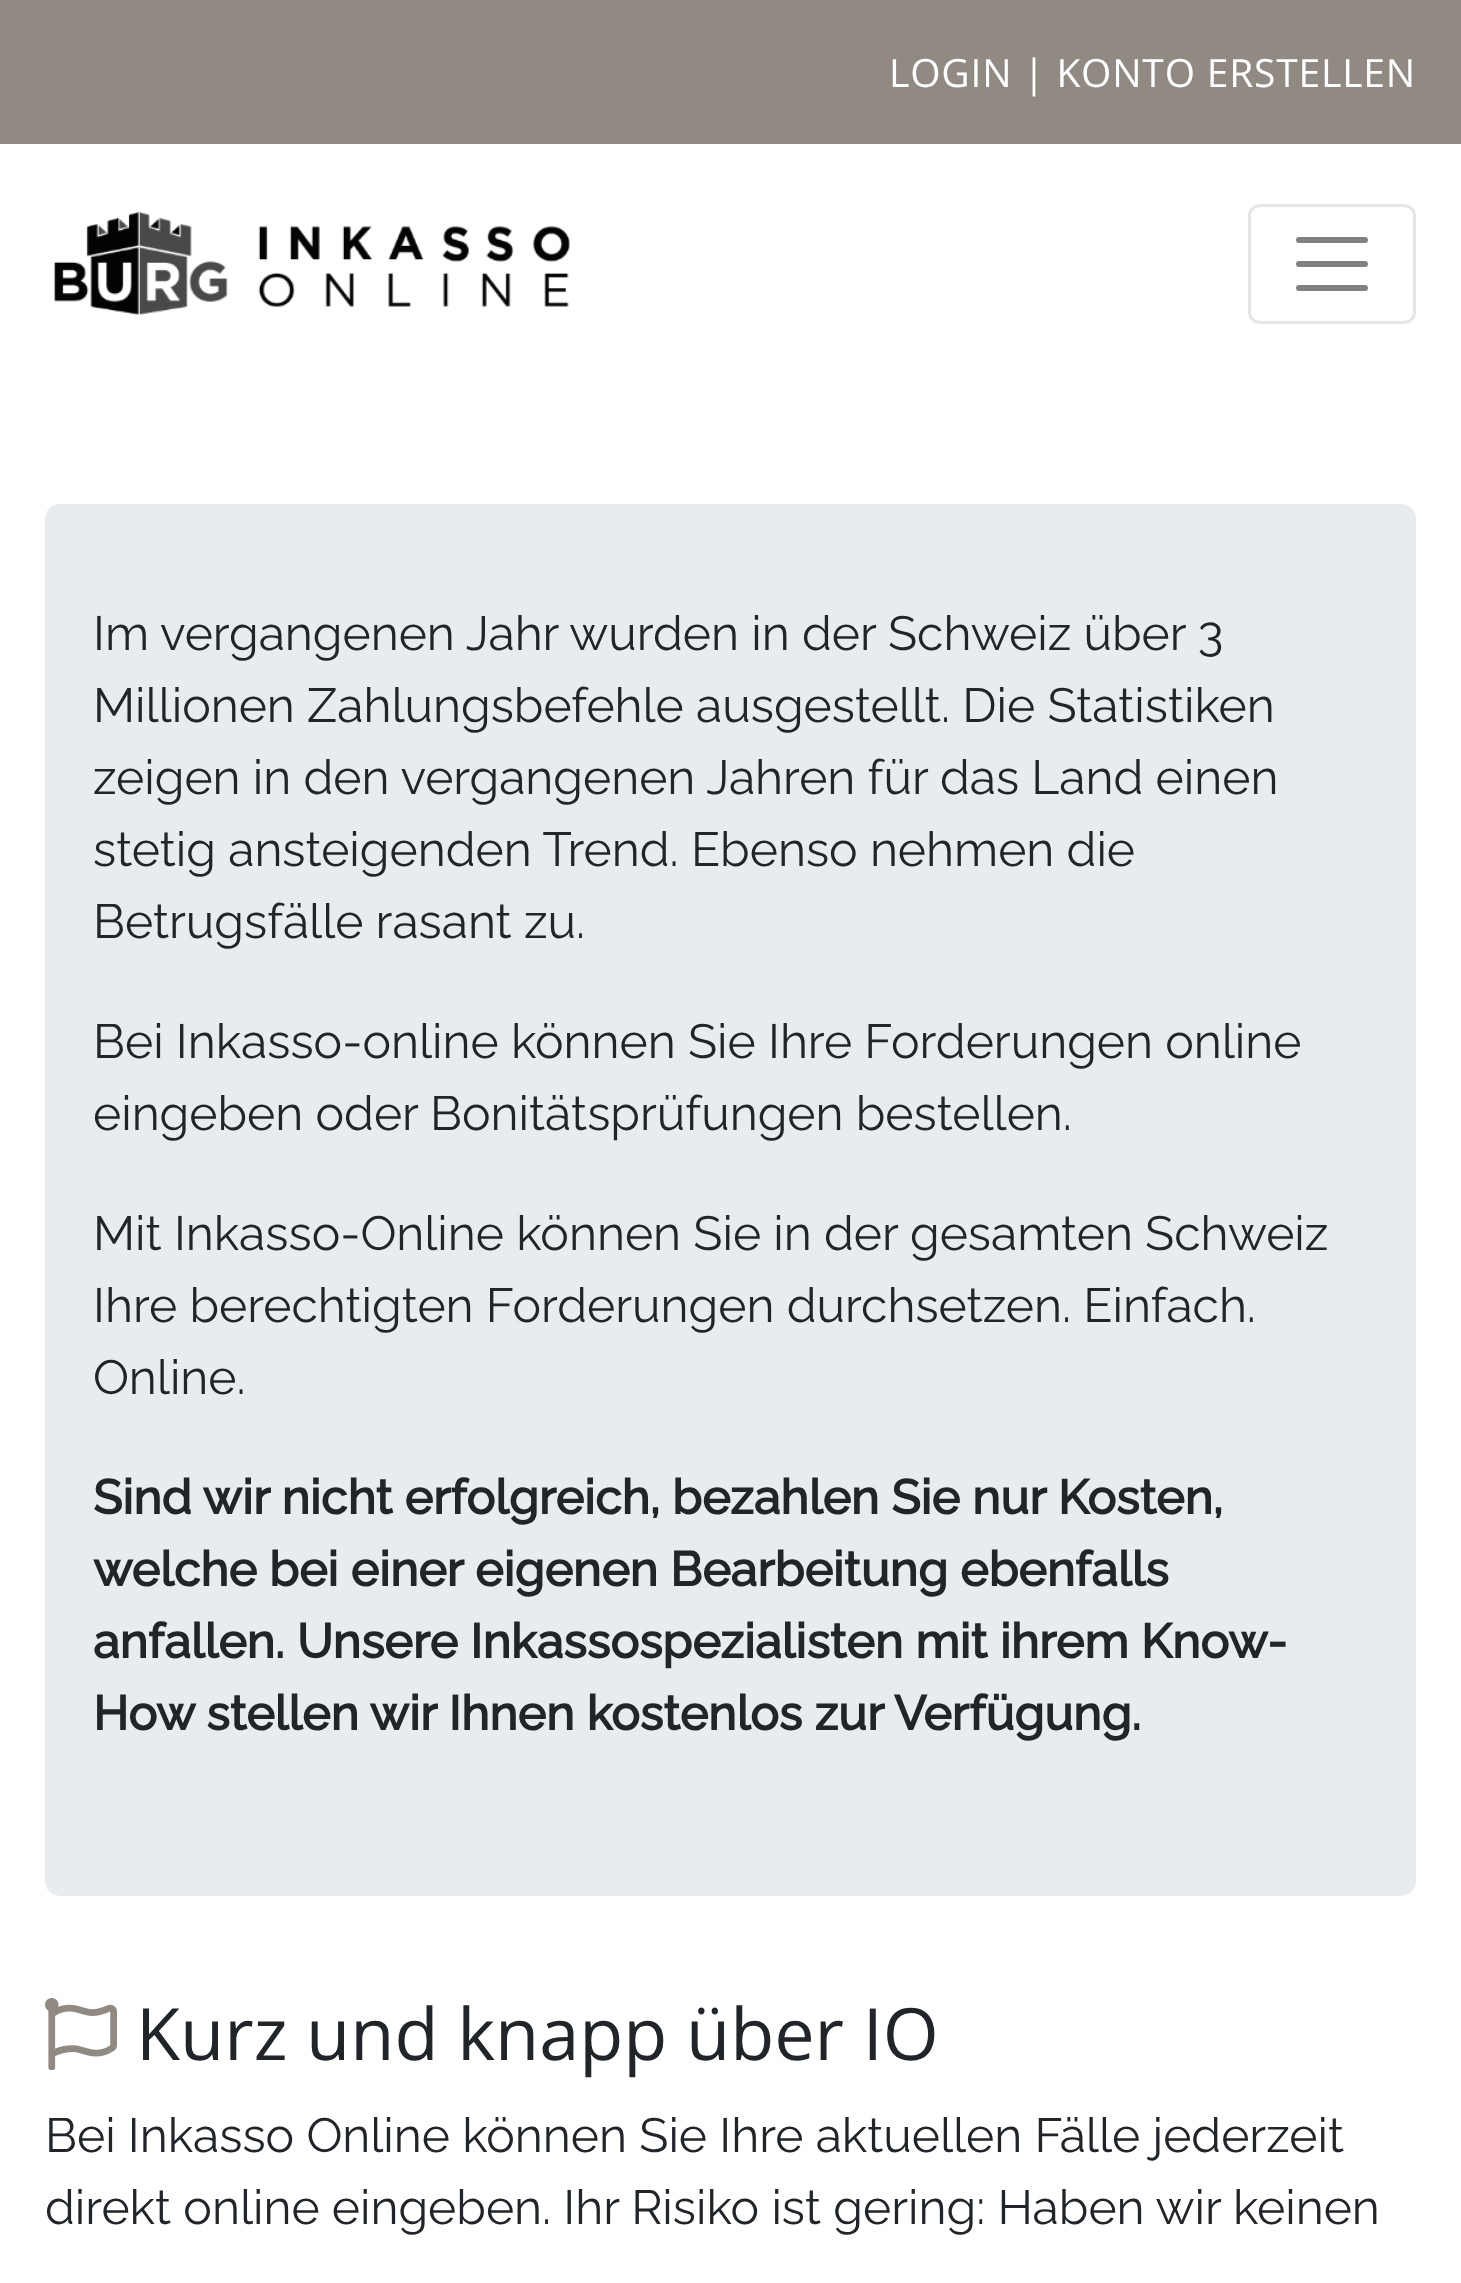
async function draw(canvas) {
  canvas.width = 1461;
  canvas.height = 2283;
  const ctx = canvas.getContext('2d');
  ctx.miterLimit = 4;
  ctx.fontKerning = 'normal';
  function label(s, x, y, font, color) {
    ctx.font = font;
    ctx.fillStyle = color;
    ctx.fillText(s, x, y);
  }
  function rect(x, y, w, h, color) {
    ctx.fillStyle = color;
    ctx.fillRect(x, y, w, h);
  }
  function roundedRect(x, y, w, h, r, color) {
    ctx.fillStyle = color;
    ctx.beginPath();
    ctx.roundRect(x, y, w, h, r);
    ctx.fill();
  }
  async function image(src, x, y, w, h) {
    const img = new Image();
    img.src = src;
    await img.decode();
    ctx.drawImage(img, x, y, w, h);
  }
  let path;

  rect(0, 0, 1461, 2283, '#fff');
  rect(0, 0, 1461, 144, '#908a83');
  ctx.letterSpacing = '0.8px';
  label('LOGIN | KONTO ERSTELLEN', 889, 87, '39px Open Sans', '#fff');
  await image('assets/img1.png', 54, 211, 516, 104);
  ctx.beginPath();
  ctx.roundRect(1249.5, 205.5, 165, 117, 10.5);
  ctx.strokeStyle = '#e6e6e6';
  ctx.lineWidth = 3;
  ctx.stroke();
  path = new Path2D('M1299 240H1365M1299 264H1365M1299 288H1365');
  ctx.strokeStyle = '#808080';
  ctx.lineWidth = 6;
  ctx.lineCap = 'round';
  ctx.stroke(path);
  roundedRect(45, 504, 1371, 1392, 15, '#e9ecef');
  ctx.letterSpacing = '0px';
  label('Im vergangenen Jahr wurden in der Schweiz über 3', 93, 650, '48px Raleway', '#212529');
  label('Millionen Zahlungsbefehle ausgestellt. Die Statistiken', 93, 722, '48px Raleway', '#212529');
  label('zeigen in den vergangenen Jahren für das Land einen', 93, 794, '48px Raleway', '#212529');
  label('stetig ansteigenden Trend. Ebenso nehmen die', 93, 866, '48px Raleway', '#212529');
  label('Betrugsfälle rasant zu.', 93, 938, '48px Raleway', '#212529');
  label('Bei Inkasso-online können Sie Ihre Forderungen online', 93, 1058, '48px Raleway', '#212529');
  label('eingeben oder Bonitätsprüfungen bestellen.', 93, 1130, '48px Raleway', '#212529');
  label('Mit Inkasso-Online können Sie in der gesamten Schweiz', 93, 1250, '48px Raleway', '#212529');
  label('Ihre berechtigten Forderungen durchsetzen. Einfach.', 93, 1322, '48px Raleway', '#212529');
  label('Online.', 93, 1394, '48px Raleway', '#212529');
  label('Sind wir nicht erfolgreich, bezahlen Sie nur Kosten,', 93, 1514, 'bold 48px Raleway', '#212529');
  label('welche bei einer eigenen Bearbeitung ebenfalls', 93, 1586, 'bold 48px Raleway', '#212529');
  label('anfallen. Unsere Inkassospezialisten mit ihrem Know-', 93, 1658, 'bold 48px Raleway', '#212529');
  label('How stellen wir Ihnen kostenlos zur Verfügung.', 93, 1730, 'bold 48px Raleway', '#212529');
  await image('assets/img2.png', 45, 1998, 72, 72);
  label('Kurz und knapp über IO', 136, 2060, '72px Open Sans', '#212529');
  label('Bei Inkasso Online können Sie Ihre aktuellen Fälle jederzeit', 45, 2152, '48px Raleway', '#212529');
  label('direkt online eingeben. Ihr Risiko ist gering: Haben wir keinen', 45, 2224, '48px Raleway', '#212529');
}

draw(document.querySelector('canvas'));
